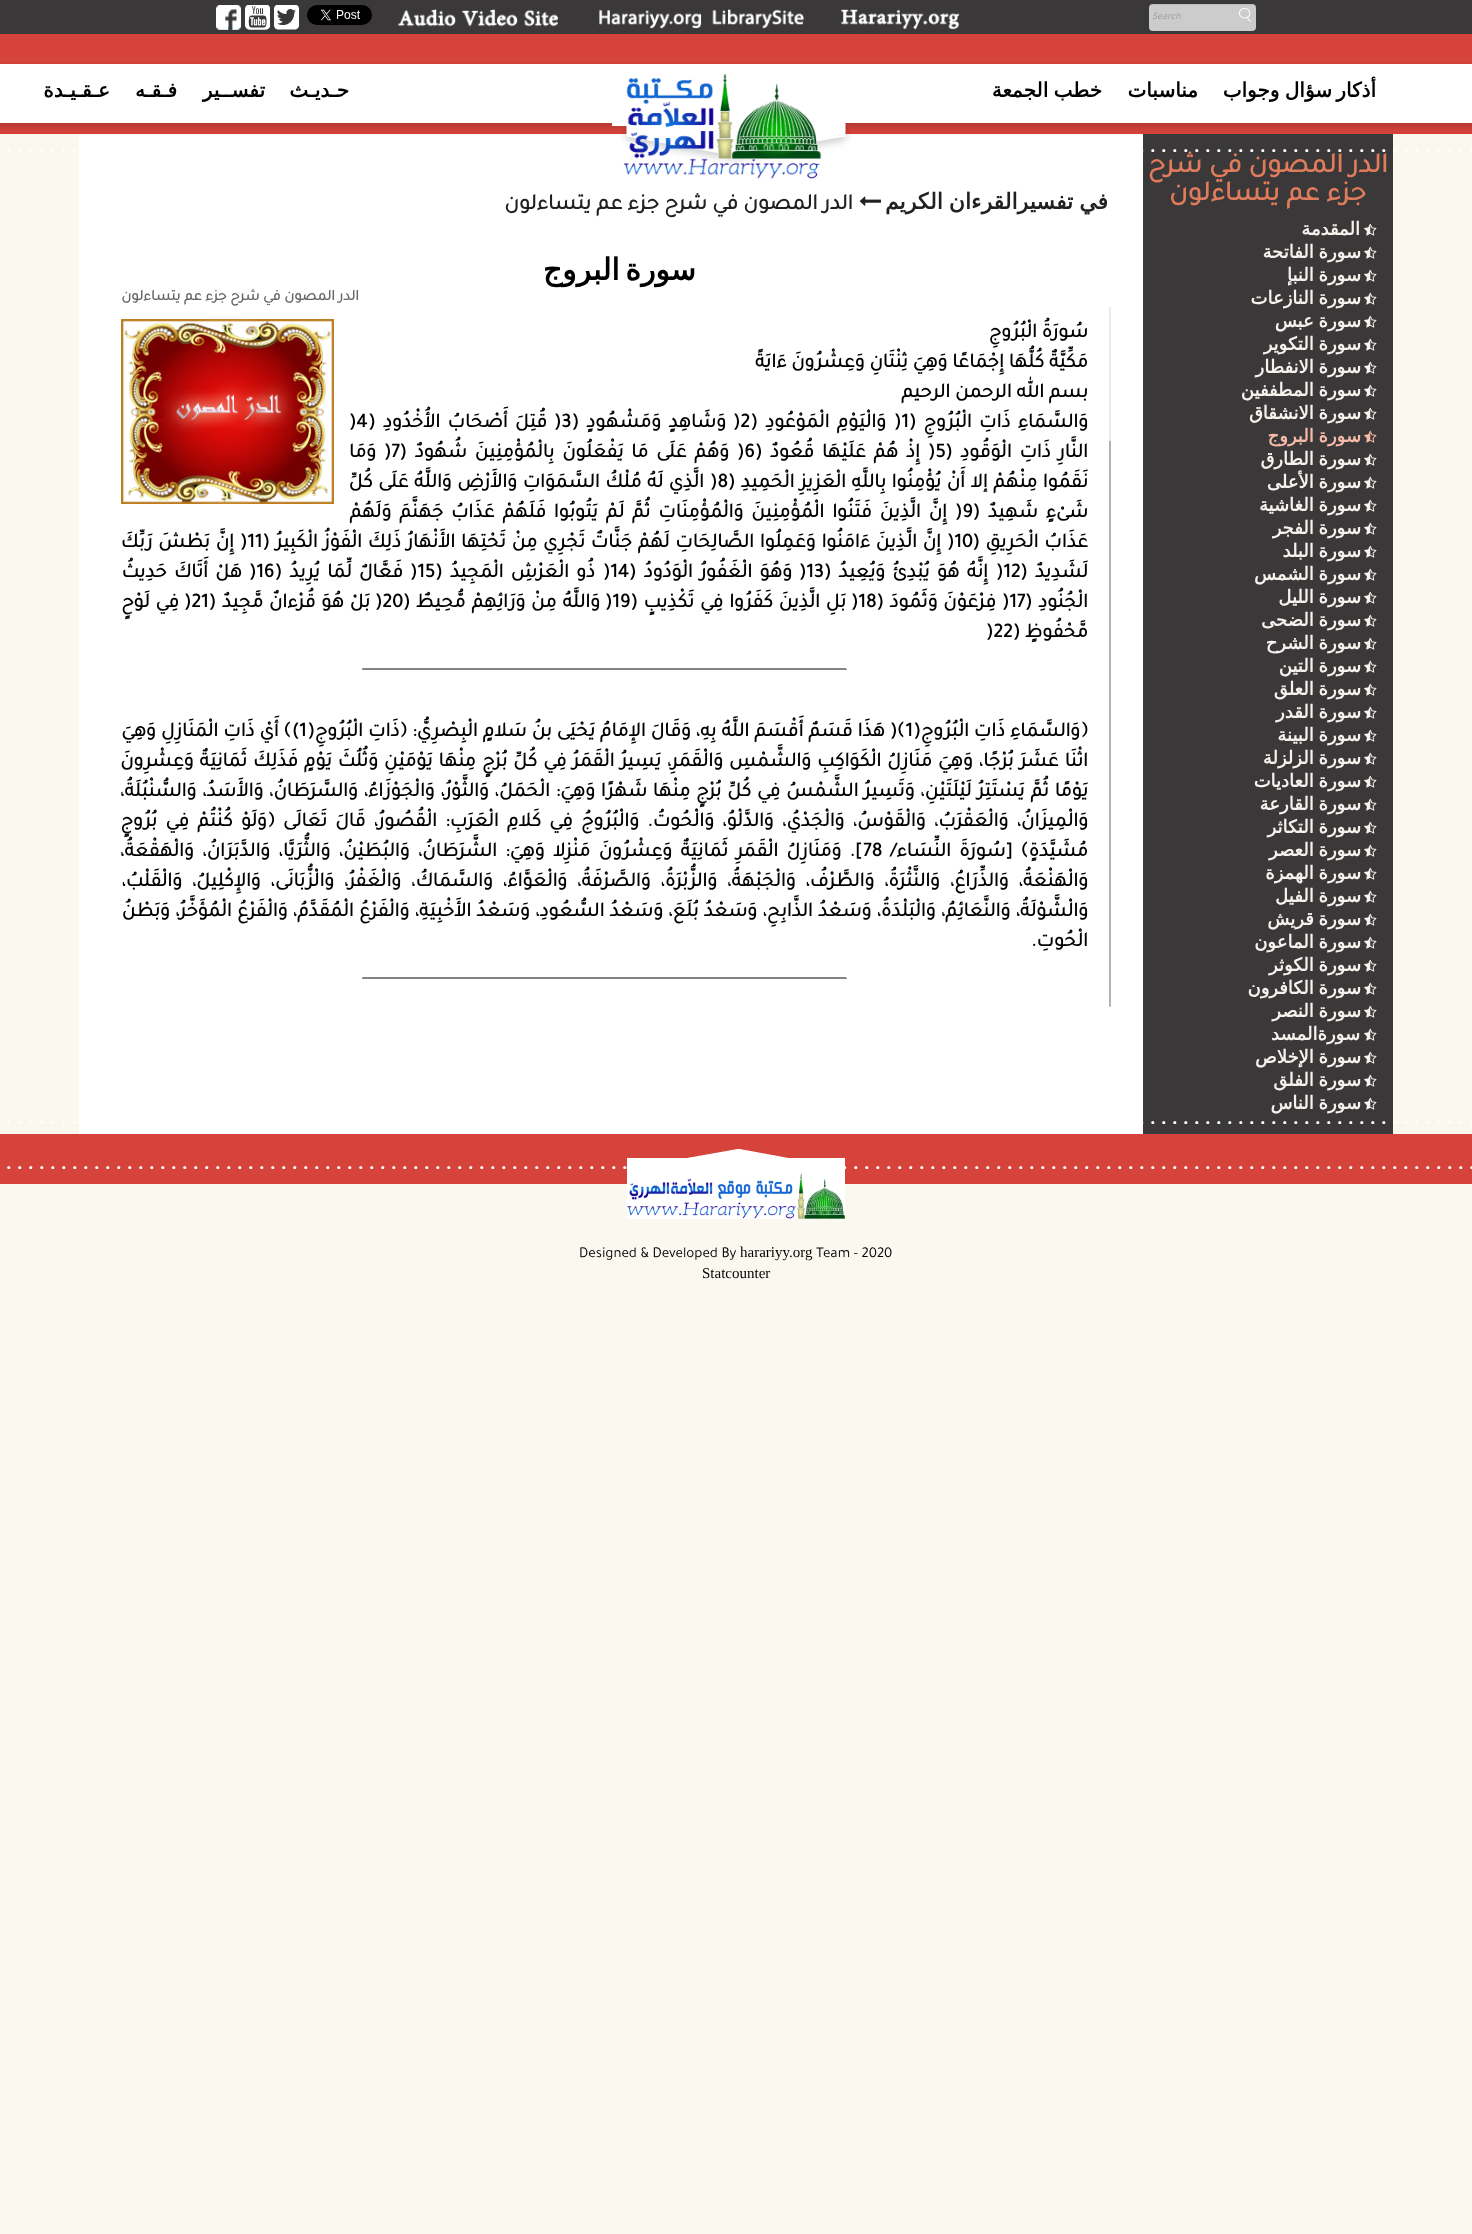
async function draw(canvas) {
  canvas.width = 1472;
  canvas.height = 2234;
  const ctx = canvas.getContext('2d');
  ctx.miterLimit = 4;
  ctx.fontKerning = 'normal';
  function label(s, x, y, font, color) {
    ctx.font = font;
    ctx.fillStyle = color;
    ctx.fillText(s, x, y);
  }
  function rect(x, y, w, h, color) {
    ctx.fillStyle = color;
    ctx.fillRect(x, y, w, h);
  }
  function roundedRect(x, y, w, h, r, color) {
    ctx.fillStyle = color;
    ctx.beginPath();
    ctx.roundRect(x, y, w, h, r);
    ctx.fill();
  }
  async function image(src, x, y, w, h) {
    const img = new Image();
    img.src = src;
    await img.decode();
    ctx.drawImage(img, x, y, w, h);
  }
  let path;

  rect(0, 0, 1472, 2234, '#fbf8ef');
  rect(0, 0, 1472, 34, '#3a3838');
  roundedRect(1149, 4, 107, 27, 4, '#ccc');
  ctx.fillStyle = '#00000012';
  path = new Path2D('M1153 5H1252C1254 5 1256 7 1256 9C1256 0 1239 4 1236 4H1170C1166 4 1149 0 1149 9C1149 7 1151 5 1153 5Z');
  ctx.fill(path);
  await image('assets/img1.png', 1239, 8, 12, 14);
  label('Search', 1152, 19, 'italic 10px Tajawal', '#999');
  await image('assets/img2.png', 841, 9, 119, 21);
  await image('assets/img3.png', 599, 9, 205, 20);
  await image('assets/img4.png', 397, 9, 161, 18);
  await image('assets/img5.png', 307, 5, 65, 20);
  await image('assets/img6.png', 274, 5, 25, 25);
  await image('assets/img7.png', 245, 5, 25, 25);
  await image('assets/img8.png', 216, 5, 25, 25);
  rect(0, 34, 1472, 100, '#d6433b');
  rect(0, 64, 1472, 59, '#fff');
  rect(0, 62, 1472, 2, '#d04139');
  rect(79, 134, 1064, 1000, '#fff');
  rect(1143, 134, 250, 1000, '#3a3838');
  await image('assets/img11.png', 7, 149, 1465, 3);
  ctx.direction = 'rtl';
  label('الدر المصون في شرح', 1388, 172, 'bold 28px Tajawal', '#e07c5c');
  await image('assets/img10.png', 0, 123, 1472, 41);
  rect(612, 123, 15, 3, '#fff');
  await image('assets/img9.png', 623, 74, 199, 105);
  label('أذكار', 1376, 97, 'bold 20px DejaVu Sans', '#000');
  ctx.wordSpacing = '-1px';
  label('سؤال وجواب', 1332, 97, 'bold 20px DejaVu Sans', '#000');
  ctx.wordSpacing = '0px';
  label('مناسبات', 1198, 97, 'bold 20px DejaVu Sans', '#000');
  ctx.wordSpacing = '-1px';
  label('خطب الجمعة', 1102, 97, 'bold 20px DejaVu Sans', '#000');
  ctx.wordSpacing = '0px';
  label('حـديـث', 349, 97, 'bold 20px DejaVu Sans', '#000');
  label('تفســير', 265, 97, 'bold 20px DejaVu Sans', '#000');
  label('فـقـه', 177, 97, 'bold 20px DejaVu Sans', '#000');
  label('عـقـيـدة', 110, 97, 'bold 20px DejaVu Sans', '#000');
  label('جزء عم يتساءلون', 1366, 200, 'bold 28px Tajawal', '#e07c5c');
  await image('assets/img12.png', 1364, 223, 13, 13);
  label('المقدمة', 1360, 235, 'bold 18px DejaVu Sans', '#f5f3ee');
  await image('assets/img12.png', 1364, 246, 13, 13);
  ctx.wordSpacing = '-1px';
  label('سورة الفاتحة', 1361, 258, 'bold 18px DejaVu Sans', '#f5f3ee');
  await image('assets/img12.png', 1364, 269, 13, 13);
  label('سورة النبإ', 1361, 281, 'bold 18px DejaVu Sans', '#f5f3ee');
  await image('assets/img12.png', 1364, 292, 13, 13);
  label('سورة النازعات', 1361, 304, 'bold 18px DejaVu Sans', '#f5f3ee');
  await image('assets/img12.png', 1364, 315, 13, 13);
  label('سورة عبس', 1361, 327, 'bold 18px DejaVu Sans', '#f5f3ee');
  await image('assets/img12.png', 1364, 338, 13, 13);
  label('سورة التكوير', 1361, 350, 'bold 18px DejaVu Sans', '#f5f3ee');
  await image('assets/img12.png', 1364, 361, 13, 13);
  label('سورة الانفطار', 1361, 373, 'bold 18px DejaVu Sans', '#f5f3ee');
  await image('assets/img12.png', 1364, 384, 13, 13);
  label('سورة المطففين', 1361, 396, 'bold 18px DejaVu Sans', '#f5f3ee');
  await image('assets/img12.png', 1364, 407, 13, 13);
  label('سورة الانشقاق', 1361, 419, 'bold 18px DejaVu Sans', '#f5f3ee');
  await image('assets/img13.png', 1364, 430, 13, 13);
  label('سورة البروج', 1361, 442, 'bold 18px DejaVu Sans', '#f7bba9');
  await image('assets/img12.png', 1364, 453, 13, 13);
  label('سورة الطارق', 1361, 465, 'bold 18px DejaVu Sans', '#f5f3ee');
  await image('assets/img12.png', 1364, 476, 13, 13);
  label('سورة الأعلى', 1361, 488, 'bold 18px DejaVu Sans', '#f5f3ee');
  await image('assets/img12.png', 1364, 499, 13, 13);
  label('سورة الغاشية', 1361, 511, 'bold 18px DejaVu Sans', '#f5f3ee');
  await image('assets/img12.png', 1364, 522, 13, 13);
  label('سورة الفجر', 1361, 534, 'bold 18px DejaVu Sans', '#f5f3ee');
  await image('assets/img12.png', 1364, 545, 13, 13);
  label('سورة البلد', 1361, 557, 'bold 18px DejaVu Sans', '#f5f3ee');
  await image('assets/img12.png', 1364, 568, 13, 13);
  label('سورة الشمس', 1361, 580, 'bold 18px DejaVu Sans', '#f5f3ee');
  await image('assets/img12.png', 1364, 591, 13, 13);
  label('سورة الليل', 1361, 603, 'bold 18px DejaVu Sans', '#f5f3ee');
  await image('assets/img12.png', 1364, 614, 13, 13);
  label('سورة الضحى', 1361, 626, 'bold 18px DejaVu Sans', '#f5f3ee');
  await image('assets/img12.png', 1364, 637, 13, 13);
  label('سورة الشرح', 1361, 649, 'bold 18px DejaVu Sans', '#f5f3ee');
  await image('assets/img12.png', 1364, 660, 13, 13);
  label('سورة التين', 1361, 672, 'bold 18px DejaVu Sans', '#f5f3ee');
  await image('assets/img12.png', 1364, 683, 13, 13);
  label('سورة العلق', 1361, 695, 'bold 18px DejaVu Sans', '#f5f3ee');
  await image('assets/img12.png', 1364, 706, 13, 13);
  label('سورة القدر', 1361, 718, 'bold 18px DejaVu Sans', '#f5f3ee');
  await image('assets/img12.png', 1364, 729, 13, 13);
  label('سورة البينة', 1361, 741, 'bold 18px DejaVu Sans', '#f5f3ee');
  await image('assets/img12.png', 1364, 752, 13, 13);
  label('سورة الزلزلة', 1361, 764, 'bold 18px DejaVu Sans', '#f5f3ee');
  await image('assets/img12.png', 1364, 775, 13, 13);
  label('سورة العاديات', 1361, 787, 'bold 18px DejaVu Sans', '#f5f3ee');
  await image('assets/img12.png', 1364, 798, 13, 13);
  label('سورة القارعة', 1361, 810, 'bold 18px DejaVu Sans', '#f5f3ee');
  await image('assets/img12.png', 1364, 821, 13, 13);
  label('سورة التكاثر', 1361, 833, 'bold 18px DejaVu Sans', '#f5f3ee');
  await image('assets/img12.png', 1364, 844, 13, 13);
  label('سورة العصر', 1361, 856, 'bold 18px DejaVu Sans', '#f5f3ee');
  await image('assets/img12.png', 1364, 867, 13, 13);
  label('سورة الهمزة', 1361, 879, 'bold 18px DejaVu Sans', '#f5f3ee');
  await image('assets/img12.png', 1364, 890, 13, 13);
  label('سورة الفيل', 1361, 902, 'bold 18px DejaVu Sans', '#f5f3ee');
  await image('assets/img12.png', 1364, 913, 13, 13);
  label('سورة قريش', 1361, 925, 'bold 18px DejaVu Sans', '#f5f3ee');
  await image('assets/img12.png', 1364, 936, 13, 13);
  label('سورة الماعون', 1361, 948, 'bold 18px DejaVu Sans', '#f5f3ee');
  await image('assets/img12.png', 1364, 959, 13, 13);
  label('سورة الكوثر', 1361, 971, 'bold 18px DejaVu Sans', '#f5f3ee');
  await image('assets/img12.png', 1364, 982, 13, 13);
  label('سورة الكافرون', 1361, 994, 'bold 18px DejaVu Sans', '#f5f3ee');
  await image('assets/img12.png', 1364, 1005, 13, 13);
  label('سورة النصر', 1361, 1017, 'bold 18px DejaVu Sans', '#f5f3ee');
  await image('assets/img12.png', 1364, 1028, 13, 13);
  ctx.wordSpacing = '0px';
  label('سورةالمسد', 1360, 1040, 'bold 18px DejaVu Sans', '#f5f3ee');
  await image('assets/img12.png', 1364, 1051, 13, 13);
  ctx.wordSpacing = '-1px';
  label('سورة الإخلاص', 1361, 1063, 'bold 18px DejaVu Sans', '#f5f3ee');
  await image('assets/img12.png', 1364, 1074, 13, 13);
  label('سورة الفلق', 1361, 1086, 'bold 18px DejaVu Sans', '#f5f3ee');
  await image('assets/img12.png', 1364, 1097, 13, 13);
  label('سورة الناس', 1361, 1109, 'bold 18px DejaVu Sans', '#f5f3ee');
  label('في تفسيرالقرءان الكريم', 1108, 209, 'bold 22px DejaVu Sans', '#212121');
  await image('assets/img14.png', 859, 196, 22, 10);
  ctx.wordSpacing = '0px';
  label('الدر المصون في شرح جزء عم يتساءلون', 853, 209, 'bold 22px Tajawal', '#212121');
  ctx.wordSpacing = '-4px';
  label('سورة البروج', 696, 280, 'bold 30px DejaVu Sans', '#000');
  ctx.wordSpacing = '0px';
  label('الدر المصون في شرح جزء عم يتساءلون', 359, 300, 'bold 15px Tajawal', '#666');
  roundedRect(1109, 307, 2, 700, 1, '#b3b3b3');
  roundedRect(1108, 307, 4, 134, 2, '#ffffffbf');
  label('سُورَةُ الْبُرُوجِ', 1088, 337, 'bold 20px Tajawal', '#000');
  await image('assets/img15.png', 121, 319, 213, 185);
  label('مَكِّيَّةٌ كُلُّهَا إِجْمَاعًا وَهِيَ ثِنْتَانِ وَعِشْرُونَ ءَايَةً', 1088, 367, 'bold 20px Tajawal', '#000');
  label('بسم الله الرحمن الرحيم', 1088, 397, 'bold 20px Tajawal', '#000');
  ctx.wordSpacing = '2.5px';
  label('وَالسَّمَاءِ ذَاتِ الْبُرُوجِ (', 1088, 427, 'bold 20px Tajawal', '#000');
  ctx.wordSpacing = '0px';
  ctx.direction = 'ltr';
  label(')1', 894, 427, 'bold 20px Tajawal', '#000');
  ctx.wordSpacing = '2.5px';
  ctx.direction = 'rtl';
  label('وَالْيَوْمِ الْمَوْعُودِ (', 886, 427, 'bold 20px Tajawal', '#000');
  ctx.wordSpacing = '0px';
  ctx.direction = 'ltr';
  label(')2', 733, 427, 'bold 20px Tajawal', '#000');
  ctx.wordSpacing = '2.5px';
  ctx.direction = 'rtl';
  label('وَشَاهِدٍ وَمَشْهُودٍ (', 726, 427, 'bold 20px Tajawal', '#000');
  ctx.wordSpacing = '0px';
  ctx.direction = 'ltr';
  label(')3', 554, 427, 'bold 20px Tajawal', '#000');
  ctx.wordSpacing = '2.5px';
  ctx.direction = 'rtl';
  label('قُتِلَ أَصْحَابُ الأُخْدُودِ (', 547, 427, 'bold 20px Tajawal', '#000');
  ctx.wordSpacing = '0px';
  ctx.direction = 'ltr';
  label(')4', 349, 427, 'bold 20px Tajawal', '#000');
  ctx.wordSpacing = '3px';
  ctx.direction = 'rtl';
  label('النَّارِ ذَاتِ الْوَقُودِ (', 1088, 457, 'bold 20px Tajawal', '#000');
  ctx.wordSpacing = '0px';
  ctx.direction = 'ltr';
  label(')5', 928, 457, 'bold 20px Tajawal', '#000');
  ctx.wordSpacing = '3px';
  ctx.direction = 'rtl';
  label('إِذْ هُمْ عَلَيْهَا قُعُودٌ (', 920, 457, 'bold 20px Tajawal', '#000');
  ctx.wordSpacing = '0px';
  ctx.direction = 'ltr';
  label(')6', 737, 457, 'bold 20px Tajawal', '#000');
  ctx.wordSpacing = '3px';
  ctx.direction = 'rtl';
  label('وَهُمْ عَلَى مَا يَفْعَلُونَ بِالْمُؤْمِنِينَ شُهُودٌ (', 729, 457, 'bold 20px Tajawal', '#000');
  ctx.wordSpacing = '0px';
  ctx.direction = 'ltr';
  label(')7', 384, 457, 'bold 20px Tajawal', '#000');
  ctx.direction = 'rtl';
  label('وَمَا', 376, 457, 'bold 20px Tajawal', '#000');
  ctx.wordSpacing = '0.75px';
  label('نَقَمُوا مِنْهُمْ إلا أَنْ يُؤْمِنُوا بِاللَّهِ الْعَزِيزِ الْحَمِيدِ (', 1088, 487, 'bold 20px Tajawal', '#000');
  ctx.wordSpacing = '0px';
  ctx.direction = 'ltr';
  label(')8', 710, 487, 'bold 20px Tajawal', '#000');
  ctx.wordSpacing = '0.75px';
  ctx.direction = 'rtl';
  label('الَّذِي لَهُ مُلْكُ السَّمَوَاتِ وَالأَرْضِ وَاللَّهُ عَلَى كُلِّ', 704, 487, 'bold 20px Tajawal', '#000');
  ctx.wordSpacing = '3.1px';
  label('شَىْءٍ شَهِيدٌ (', 1088, 517, 'bold 20px Tajawal', '#000');
  ctx.wordSpacing = '0px';
  ctx.direction = 'ltr';
  label(')9', 955, 517, 'bold 20px Tajawal', '#000');
  ctx.wordSpacing = '3.1px';
  ctx.direction = 'rtl';
  label('إِنَّ الَّذِينَ فَتَنُوا الْمُؤْمِنِينَ وَالْمُؤْمِنَاتِ ثُمَّ لَمْ يَتُوبُوا فَلَهُمْ عَذَابُ جَهَنَّمَ وَلَهُمْ', 947, 517, 'bold 20px Tajawal', '#000');
  ctx.wordSpacing = '1px';
  label('عَذَابُ الْحَرِيقِ (', 1088, 547, 'bold 20px Tajawal', '#000');
  ctx.wordSpacing = '0px';
  ctx.direction = 'ltr';
  label(')10', 947, 547, 'bold 20px Tajawal', '#000');
  ctx.wordSpacing = '1px';
  ctx.direction = 'rtl';
  label('إِنَّ الَّذِينَ ءَامَنُوا وَعَمِلُوا الصَّالِحَاتِ لَهُمْ جَنَّاتٌ تَجْرِي مِنْ تَحْتِهَا الأَنْهَارُ ذَلِكَ الْفَوْزُ الْكَبِيرُ (', 941, 547, 'bold 20px Tajawal', '#000');
  ctx.wordSpacing = '0px';
  ctx.direction = 'ltr';
  label(')11', 240, 547, 'bold 20px Tajawal', '#000');
  ctx.wordSpacing = '1px';
  ctx.direction = 'rtl';
  label('إِنَّ بَطْشَ رَبِّكَ', 234, 547, 'bold 20px Tajawal', '#000');
  ctx.wordSpacing = '2.5px';
  label('لَشَدِيدٌ (', 1088, 577, 'bold 20px Tajawal', '#000');
  ctx.wordSpacing = '0px';
  ctx.direction = 'ltr';
  label(')12', 996, 577, 'bold 20px Tajawal', '#000');
  ctx.wordSpacing = '2.5px';
  ctx.direction = 'rtl';
  label('إِنَّهُ هُوَ يُبْدِئُ وَيُعِيدُ (', 988, 577, 'bold 20px Tajawal', '#000');
  ctx.wordSpacing = '0px';
  ctx.direction = 'ltr';
  label(')13', 799, 577, 'bold 20px Tajawal', '#000');
  ctx.wordSpacing = '2.5px';
  ctx.direction = 'rtl';
  label('وَهُوَ الْغَفُورُ الْوَدُودُ (', 792, 577, 'bold 20px Tajawal', '#000');
  ctx.wordSpacing = '0px';
  ctx.direction = 'ltr';
  label(')14', 603, 577, 'bold 20px Tajawal', '#000');
  ctx.wordSpacing = '2.5px';
  ctx.direction = 'rtl';
  label('ذُو الْعَرْشِ الْمَجِيدُ (', 595, 577, 'bold 20px Tajawal', '#000');
  ctx.wordSpacing = '0px';
  ctx.direction = 'ltr';
  label(')15', 410, 577, 'bold 20px Tajawal', '#000');
  ctx.wordSpacing = '2.5px';
  ctx.direction = 'rtl';
  label('فَعَّالٌ لِّمَا يُرِيدُ (', 403, 577, 'bold 20px Tajawal', '#000');
  ctx.wordSpacing = '0px';
  ctx.direction = 'ltr';
  label(')16', 249, 577, 'bold 20px Tajawal', '#000');
  ctx.wordSpacing = '2.5px';
  ctx.direction = 'rtl';
  label('هَلْ أَتَاكَ حَدِيثُ', 242, 577, 'bold 20px Tajawal', '#000');
  ctx.wordSpacing = '1px';
  label('الْجُنُودِ (', 1088, 607, 'bold 20px Tajawal', '#000');
  ctx.wordSpacing = '0px';
  ctx.direction = 'ltr';
  label(')17', 1002, 607, 'bold 20px Tajawal', '#000');
  ctx.wordSpacing = '1px';
  ctx.direction = 'rtl';
  label('فِرْعَوْنَ وَثَمُودَ (', 996, 607, 'bold 20px Tajawal', '#000');
  ctx.wordSpacing = '0px';
  ctx.direction = 'ltr';
  label(')18', 851, 607, 'bold 20px Tajawal', '#000');
  ctx.wordSpacing = '1px';
  ctx.direction = 'rtl';
  label('بَلِ الَّذِينَ كَفَرُوا فِي تَكْذِيبٍ (', 846, 607, 'bold 20px Tajawal', '#000');
  ctx.wordSpacing = '0px';
  ctx.direction = 'ltr';
  label(')19', 605, 607, 'bold 20px Tajawal', '#000');
  ctx.wordSpacing = '1px';
  ctx.direction = 'rtl';
  label('وَاللَّهُ مِنْ وَرَائِهِمْ مُّحِيطٌ (', 600, 607, 'bold 20px Tajawal', '#000');
  ctx.wordSpacing = '0px';
  ctx.direction = 'ltr';
  label(')20', 375, 607, 'bold 20px Tajawal', '#000');
  ctx.wordSpacing = '1px';
  ctx.direction = 'rtl';
  label('بَلْ هُوَ قُرْءانٌ مَّجِيدٌ (', 370, 607, 'bold 20px Tajawal', '#000');
  ctx.wordSpacing = '0px';
  ctx.direction = 'ltr';
  label(')21', 184, 607, 'bold 20px Tajawal', '#000');
  ctx.wordSpacing = '1px';
  ctx.direction = 'rtl';
  label('فِي لَوْحٍ', 179, 607, 'bold 20px Tajawal', '#000');
  ctx.wordSpacing = '0px';
  label('مَّحْفُوظٍ (', 1088, 637, 'bold 20px Tajawal', '#000');
  ctx.direction = 'ltr';
  label(')22', 986, 637, 'bold 20px Tajawal', '#000');
  rect(362, 668, 485, 1, '#868480');
  rect(846, 668, 1, 2, '#eee');
  rect(362, 669, 485, 1, '#868480');
  rect(362, 668, 1, 2, '#9f9f9f');
  ctx.direction = 'rtl';
  label('﴿وَالسَّمَاءِ ذَاتِ الْبُرُوجِ(', 1088, 736, 'bold 20px Tajawal', '#000');
  ctx.direction = 'ltr';
  label(')﴾1', 890, 736, 'bold 20px Tajawal', '#000');
  ctx.wordSpacing = '0.25px';
  ctx.direction = 'rtl';
  label('هَذَا قَسَمٌ أَقْسَمَ اللَّهُ بِهِ، وَقَالَ الإِمَامُ يَحْيَى بنُ سَلامٍ الْبِصْرِيُّ: ﴿ذَاتِ الْبُرُوجِ(', 885, 736, 'bold 20px Tajawal', '#000');
  ctx.wordSpacing = '0px';
  ctx.direction = 'ltr';
  label('1', 299, 736, 'bold 20px Tajawal', '#000');
  ctx.wordSpacing = '0.25px';
  ctx.direction = 'rtl';
  label(')﴾ أَيْ ذَاتِ الْمَنَازِلِ وَهِيَ', 299, 736, 'bold 20px Tajawal', '#000');
  ctx.wordSpacing = '1.2px';
  label('اثْنَا عَشَرَ بُرْجًا، وَهِيَ مَنَازِلُ الْكَوَاكِبِ وَالشَّمْسِ وَالْقَمَرِ، يَسِيرُ الْقَمَرُ فِي كُلِّ بُرْجٍ مِنْهَا يَوْمَيْنِ وَثُلُثَ يَوْمٍ فَذَلِكَ ثَمَانِيَةٌ وَعِشْرِونَ', 1088, 766, 'bold 20px Tajawal', '#000');
  ctx.wordSpacing = '1px';
  label('يَوْمًا ثُمَّ يَسْتَتِرُ لَيْلَتَيْنِ، وَتَسِيرُ الشَّمْسُ فِي كُلِّ بُرْجٍ مِنْهَا شَهْرًا وَهِيَ: الْحَمَلُ، وَالثَّوْرُ، وَالْجَوْزَاءُ، وَالسَّرَطَانُ، وَالأَسَدُ، وَالسُّنْبُلَةُ،', 1088, 796, 'bold 20px Tajawal', '#000');
  ctx.wordSpacing = '3.5px';
  label('وَالْمِيزَانُ، وَالْعَقْرَبُ، وَالْقَوْسُ، وَالْجَدْيُ، وَالدَّلْوُ، وَالْحُوتُ. وَالْبُرُوجُ فِي كَلامِ الْعَرَبِ: الْقُصُورُ، قَالَ تَعَالَى ﴿وَلَوْ كُنْتُمْ فِي بُرُوجٍ', 1088, 826, 'bold 20px Tajawal', '#000');
  ctx.wordSpacing = '3.6px';
  label('مُشَيَّدَةٍ﴾ [سُورَةَ النِّسَاء/', 1088, 856, 'bold 20px Tajawal', '#000');
  ctx.wordSpacing = '0px';
  ctx.direction = 'ltr';
  label('78', 863, 856, 'bold 20px Tajawal', '#000');
  ctx.wordSpacing = '3.6px';
  ctx.direction = 'rtl';
  label(']. وَمَنَازِلُ الْقَمَرِ ثَمَانِيَةٌ وَعِشْرُونَ مَنْزِلا وَهِيَ: الشَّرَطَانُ، وَالبُطَيْنُ، وَالثُّرَيَّا، وَالدَّبَرَانُ، وَالْهَقْعَةُ،', 862, 856, 'bold 20px Tajawal', '#000');
  ctx.wordSpacing = '5.1px';
  label('وَالْهَنْعَةُ، وَالذِّرَاعُ، وَالنَّثْرَةُ، وَالطَّرْفُ، وَالْجَبْهَةُ، وَالزُّبْرَةُ، وَالصَّرْفَةُ، وَالْعَوَّاءُ، وَالسَّمَاكُ، وَالْغَفْرُ، وَالْزُّبَانَى، وَالإِكْلِيلُ، وَالْقَلْبُ،', 1088, 886, 'bold 20px Tajawal', '#000');
  ctx.wordSpacing = '0.5px';
  label('وَالْشَّوْلَةُ، وَالنَّعَائِمُ، وَالْبَلْدَةُ، وَسَعْدُ الذَّابِحِ، وَسَعْدُ بُلَعَ، وَسَعْدُ السُّعُودِ، وَسَعْدُ الأَخْبِيَةِ، وَالْفَرْعُ الْمُقَدَّمُ، وَالْفَرْعُ الْمُؤَخَّرُ، وَبَطْنُ', 1088, 916, 'bold 20px Tajawal', '#000');
  ctx.wordSpacing = '0px';
  label('الْحُوتِ.', 1088, 946, 'bold 20px Tajawal', '#000');
  rect(362, 977, 485, 1, '#868480');
  rect(846, 977, 1, 2, '#eee');
  rect(362, 978, 485, 1, '#868480');
  rect(362, 977, 1, 2, '#9f9f9f');
  await image('assets/img11.png', 7, 1121, 1465, 3);
  rect(0, 1134, 1472, 50, '#d6433b');
  await image('assets/img16.png', 7, 1166, 1465, 3);
  rect(627, 1158, 218, 61, '#fff');
  await image('assets/img17.png', 687, 1148, 101, 10);
  await image('assets/img18.png', 627, 1173, 218, 46);
  ctx.direction = 'ltr';
  label('Team - 2020', 816, 1257, '15px Tajawal', '#000');
  label('harariyy.org', 740, 1257, '15px Liberation Serif', '#000');
  label('Designed & Developed By', 579, 1257, '15px Tajawal', '#000');
  label('Statcounter', 702, 1278, '15px Liberation Serif', '#000');
}

draw(document.querySelector('canvas'));
